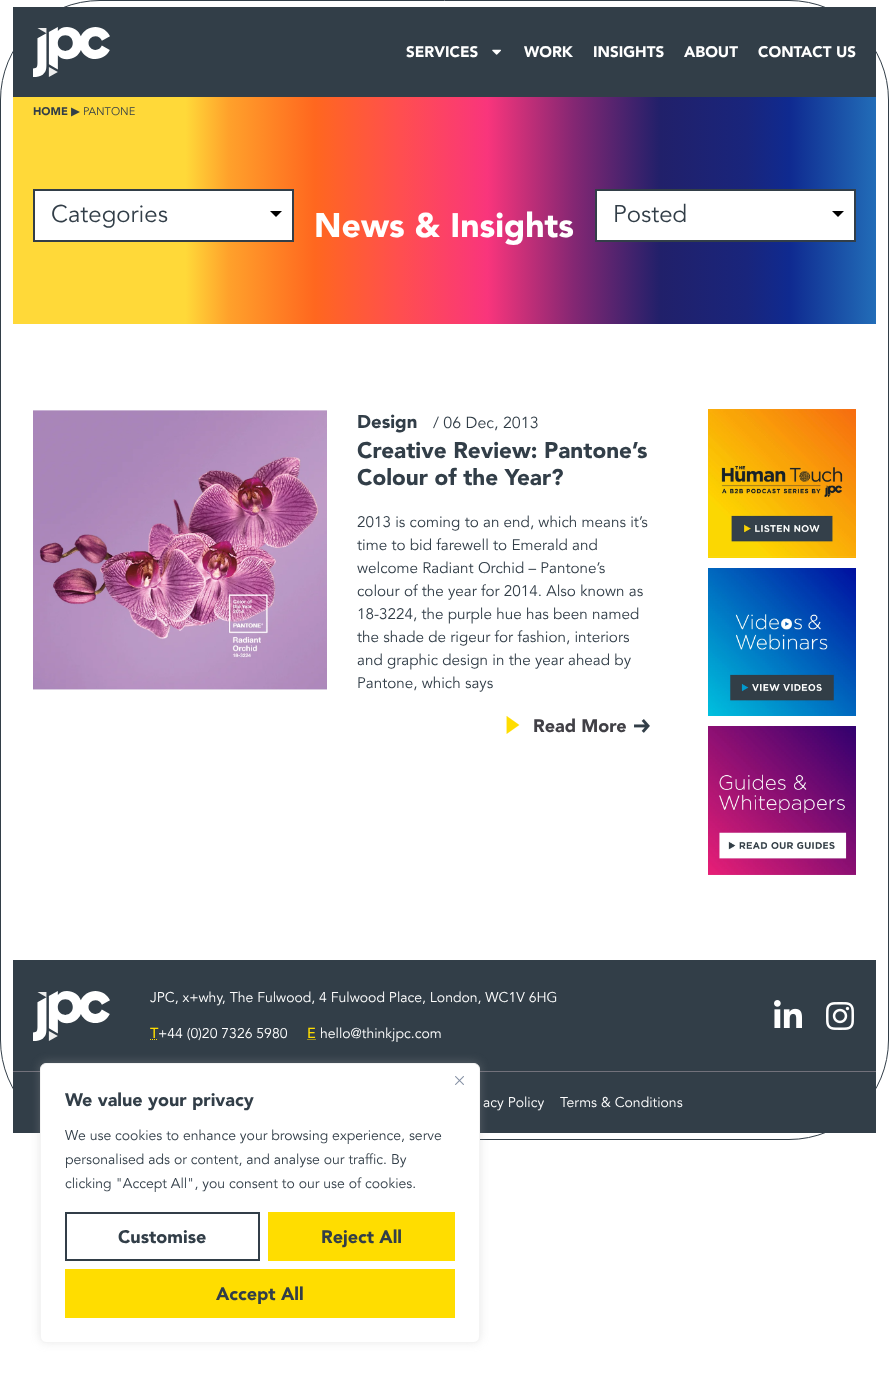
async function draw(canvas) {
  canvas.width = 889;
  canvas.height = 1383;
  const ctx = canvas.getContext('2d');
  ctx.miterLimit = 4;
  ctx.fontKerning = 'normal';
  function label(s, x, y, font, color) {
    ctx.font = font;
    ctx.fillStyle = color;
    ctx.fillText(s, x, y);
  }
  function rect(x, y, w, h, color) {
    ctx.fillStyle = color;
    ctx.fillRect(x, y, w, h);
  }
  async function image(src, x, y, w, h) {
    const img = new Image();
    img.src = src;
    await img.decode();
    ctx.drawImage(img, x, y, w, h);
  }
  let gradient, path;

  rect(0, 0, 889, 1383, '#fff');
  ctx.beginPath();
  ctx.roundRect(0.5, 0.5, 888, 1139, 99.5);
  ctx.strokeStyle = '#323e48';
  ctx.stroke();
  rect(13, 7, 863, 90, '#323e48');
  await image('assets/img1.png', 33, 27, 77, 50);
  label('SERVICES', 406, 57, '900 15.25px "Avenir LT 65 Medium"', '#fff');
  await image('assets/img2.png', 492, 49, 9, 6);
  label('WORK', 524, 57, '900 15.25px "Avenir LT 65 Medium"', '#fff');
  label('INSIGHTS', 593, 57, '900 15.25px "Avenir LT 65 Medium"', '#fff');
  label('ABOUT', 684, 57, '900 15.25px "Avenir LT 65 Medium"', '#fff');
  label('CONTACT US', 758, 57, '900 15.25px "Avenir LT 65 Medium"', '#fff');
  gradient = ctx.createLinearGradient(13, 112, 876, 111);
  gradient.addColorStop(0.2, '#ffd939');
  gradient.addColorStop(0.25, '#ffa12b');
  gradient.addColorStop(0.35, '#ff671f');
  gradient.addColorStop(0.45, '#ff4e50');
  gradient.addColorStop(0.55, '#f9357c');
  gradient.addColorStop(0.65, '#842773');
  gradient.addColorStop(0.75, '#21206a');
  gradient.addColorStop(0.85, '#19257c');
  gradient.addColorStop(0.9, '#0f2a90');
  gradient.addColorStop(1, '#226db8');
  ctx.fillStyle = gradient;
  ctx.fillRect(13, 97, 863, 29);
  label('HOME', 33, 115, '900 11px "Avenir LT 65 Medium"', '#323e48');
  label('▶', 71, 115, 'bold 11px DejaVu Sans', '#323e48');
  label('PANTONE', 83, 115, '11px "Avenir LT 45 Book"', '#323e48');
  gradient = ctx.createLinearGradient(13, 225, 876, 225);
  gradient.addColorStop(0.2, '#ffd939');
  gradient.addColorStop(0.25, '#ffa12b');
  gradient.addColorStop(0.35, '#ff671f');
  gradient.addColorStop(0.45, '#ff4e50');
  gradient.addColorStop(0.55, '#f9357c');
  gradient.addColorStop(0.65, '#842773');
  gradient.addColorStop(0.75, '#21206a');
  gradient.addColorStop(0.85, '#19257c');
  gradient.addColorStop(0.9, '#0f2a90');
  gradient.addColorStop(1, '#226db8');
  ctx.fillStyle = gradient;
  ctx.fillRect(13, 126, 863, 198);
  ctx.fillStyle = '#fff';
  ctx.beginPath();
  ctx.rect(34, 190, 259, 51);
  ctx.fill();
  ctx.lineWidth = 2;
  ctx.stroke();
  label('Categories', 51, 222, '24px "Avenir LT 45 Book"', '#323e48');
  ctx.fillStyle = '#000';
  path = new Path2D('M270 211H282L276 217Z');
  ctx.fill(path);
  label('News & Insights', 314, 237, '900 33.75px "Avenir LT 65 Medium"', '#fff');
  ctx.beginPath();
  ctx.rect(596, 190, 259, 51);
  ctx.fill();
  ctx.stroke();
  label('Posted', 613, 222, '24px "Avenir LT 45 Book"', '#323e48');
  ctx.fillStyle = '#000';
  path = new Path2D('M832 211H844L838 217Z');
  ctx.fill(path);
  await image('assets/img3.png', 33, 410, 294, 280);
  label('Design', 357, 428, '900 18.5px "Avenir LT 65 Medium"', '#323e48');
  label('/ 06 Dec, 2013', 433, 428, '16px "Avenir LT 45 Book"', '#323e48');
  label('Creative Review: Pantone’s', 357, 458, '900 22.5px "Avenir LT 65 Medium"', '#323e48');
  label('Colour of the Year?', 357, 485, '900 22.5px "Avenir LT 65 Medium"', '#323e48');
  label('2013 is coming to an end, which means it’s', 357, 527, '15.25px "Avenir LT 45 Book"', '#323e48');
  label('time to bid farewell to Emerald and', 357, 550, '15.25px "Avenir LT 45 Book"', '#323e48');
  label('welcome Radiant Orchid – Pantone’s', 357, 573, '15.25px "Avenir LT 45 Book"', '#323e48');
  label('colour of the year for 2014. Also known as', 357, 596, '15.25px "Avenir LT 45 Book"', '#323e48');
  label('18-3224, the purple hue has been named', 357, 619, '15.25px "Avenir LT 45 Book"', '#323e48');
  label('the shade de rigeur for fashion, interiors', 357, 642, '15.25px "Avenir LT 45 Book"', '#323e48');
  label('and graphic design in the year ahead by', 357, 665, '15.25px "Avenir LT 45 Book"', '#323e48');
  label('Pantone, which says', 357, 688, '15.25px "Avenir LT 45 Book"', '#323e48');
  await image('assets/img4.png', 506, 716, 14, 18);
  label('Read More', 533, 732, '900 18px "Avenir LT 65 Medium"', '#414046');
  await image('assets/img5.png', 634, 719, 16, 14);
  await image('assets/img6.png', 708, 409, 148, 148);
  await image('assets/img7.png', 708, 557, 148, 1);
  await image('assets/img8.png', 708, 568, 148, 148);
  await image('assets/img9.png', 730, 614, 105, 87);
  await image('assets/img10.png', 708, 726, 148, 149);
  await image('assets/img11.png', 710, 726, 145, 134);
  rect(13, 960, 863, 111, '#323e48');
  await image('assets/img12.png', 33, 991, 77, 50);
  label('JPC, x+why, The Fulwood, 4 Fulwood Place, London, WC1V 6HG', 150, 1002, '14px "Avenir LT 45 Book"', '#fff');
  label('T', 150, 1038, 'bold 14px "Avenir LT 45 Book"', '#fd0');
  path = new Path2D('M150 1039.5H158');
  ctx.strokeStyle = '#fd0';
  ctx.lineWidth = 1;
  ctx.setLineDash([1, 1]);
  ctx.stroke(path);
  label('+44 (0)20 7326 5980', 158, 1038, '14px "Avenir LT 45 Book"', '#fff');
  label('E', 307, 1038, 'bold 14px "Avenir LT 45 Book"', '#fd0');
  path = new Path2D('M307.5 1039.5H316');
  ctx.stroke(path);
  label('hello@thinkjpc.com', 320, 1038, '14px "Avenir LT 45 Book"', '#fff');
  await image('assets/img13.png', 774, 1000, 28, 28);
  await image('assets/img14.png', 826, 1002, 28, 28);
  rect(13, 1072, 863, 61, '#323e48');
  rect(13, 1071, 863, 1, '#72717b');
  label('acy Policy', 483, 1107, '14px "Avenir LT 45 Book"', '#fff');
  label('Terms & Conditions', 560, 1107, '14px "Avenir LT 45 Book"', '#fff');
  ctx.fillStyle = '#acabab4d';
  ctx.filter = 'blur(5px)';
  ctx.beginPath();
  ctx.roundRect(40, 1062, 440, 280, 6);
  ctx.fill();
  ctx.filter = 'none';
  ctx.fillStyle = '#fff';
  ctx.beginPath();
  ctx.roundRect(40.5, 1063.5, 439, 279, 5.5);
  ctx.fill();
  ctx.strokeStyle = '#f4f4f4';
  ctx.setLineDash([]);
  ctx.stroke();
  await image('assets/img15.png', 455, 1076, 9, 9);
  label('We value your privacy', 65, 1106, '900 18px "Avenir LT 65 Medium"', '#323e48');
  label('We use cookies to enhance your browsing experience, serve', 65, 1140, '14px "Avenir LT 45 Book"', '#323e48');
  label('personalised ads or content, and analyse our traffic. By', 65, 1164, '14px "Avenir LT 45 Book"', '#323e48');
  label('clicking "Accept All", you consent to our use of cookies.', 65, 1188, '14px "Avenir LT 45 Book"', '#323e48');
  ctx.strokeStyle = '#323e48';
  ctx.lineWidth = 2;
  ctx.strokeRect(66, 1213, 193, 47);
  label('Customise', 118, 1243, '900 18px "Avenir LT 65 Medium"', '#323e48');
  rect(268, 1212, 187, 49, '#fd0');
  label('Reject All', 321, 1243, '900 18px "Avenir LT 65 Medium"', '#323e48');
  rect(65, 1269, 390, 49, '#fd0');
  label('Accept All', 216, 1300, '900 18px "Avenir LT 65 Medium"', '#323e48');
}

draw(document.querySelector('canvas'));
